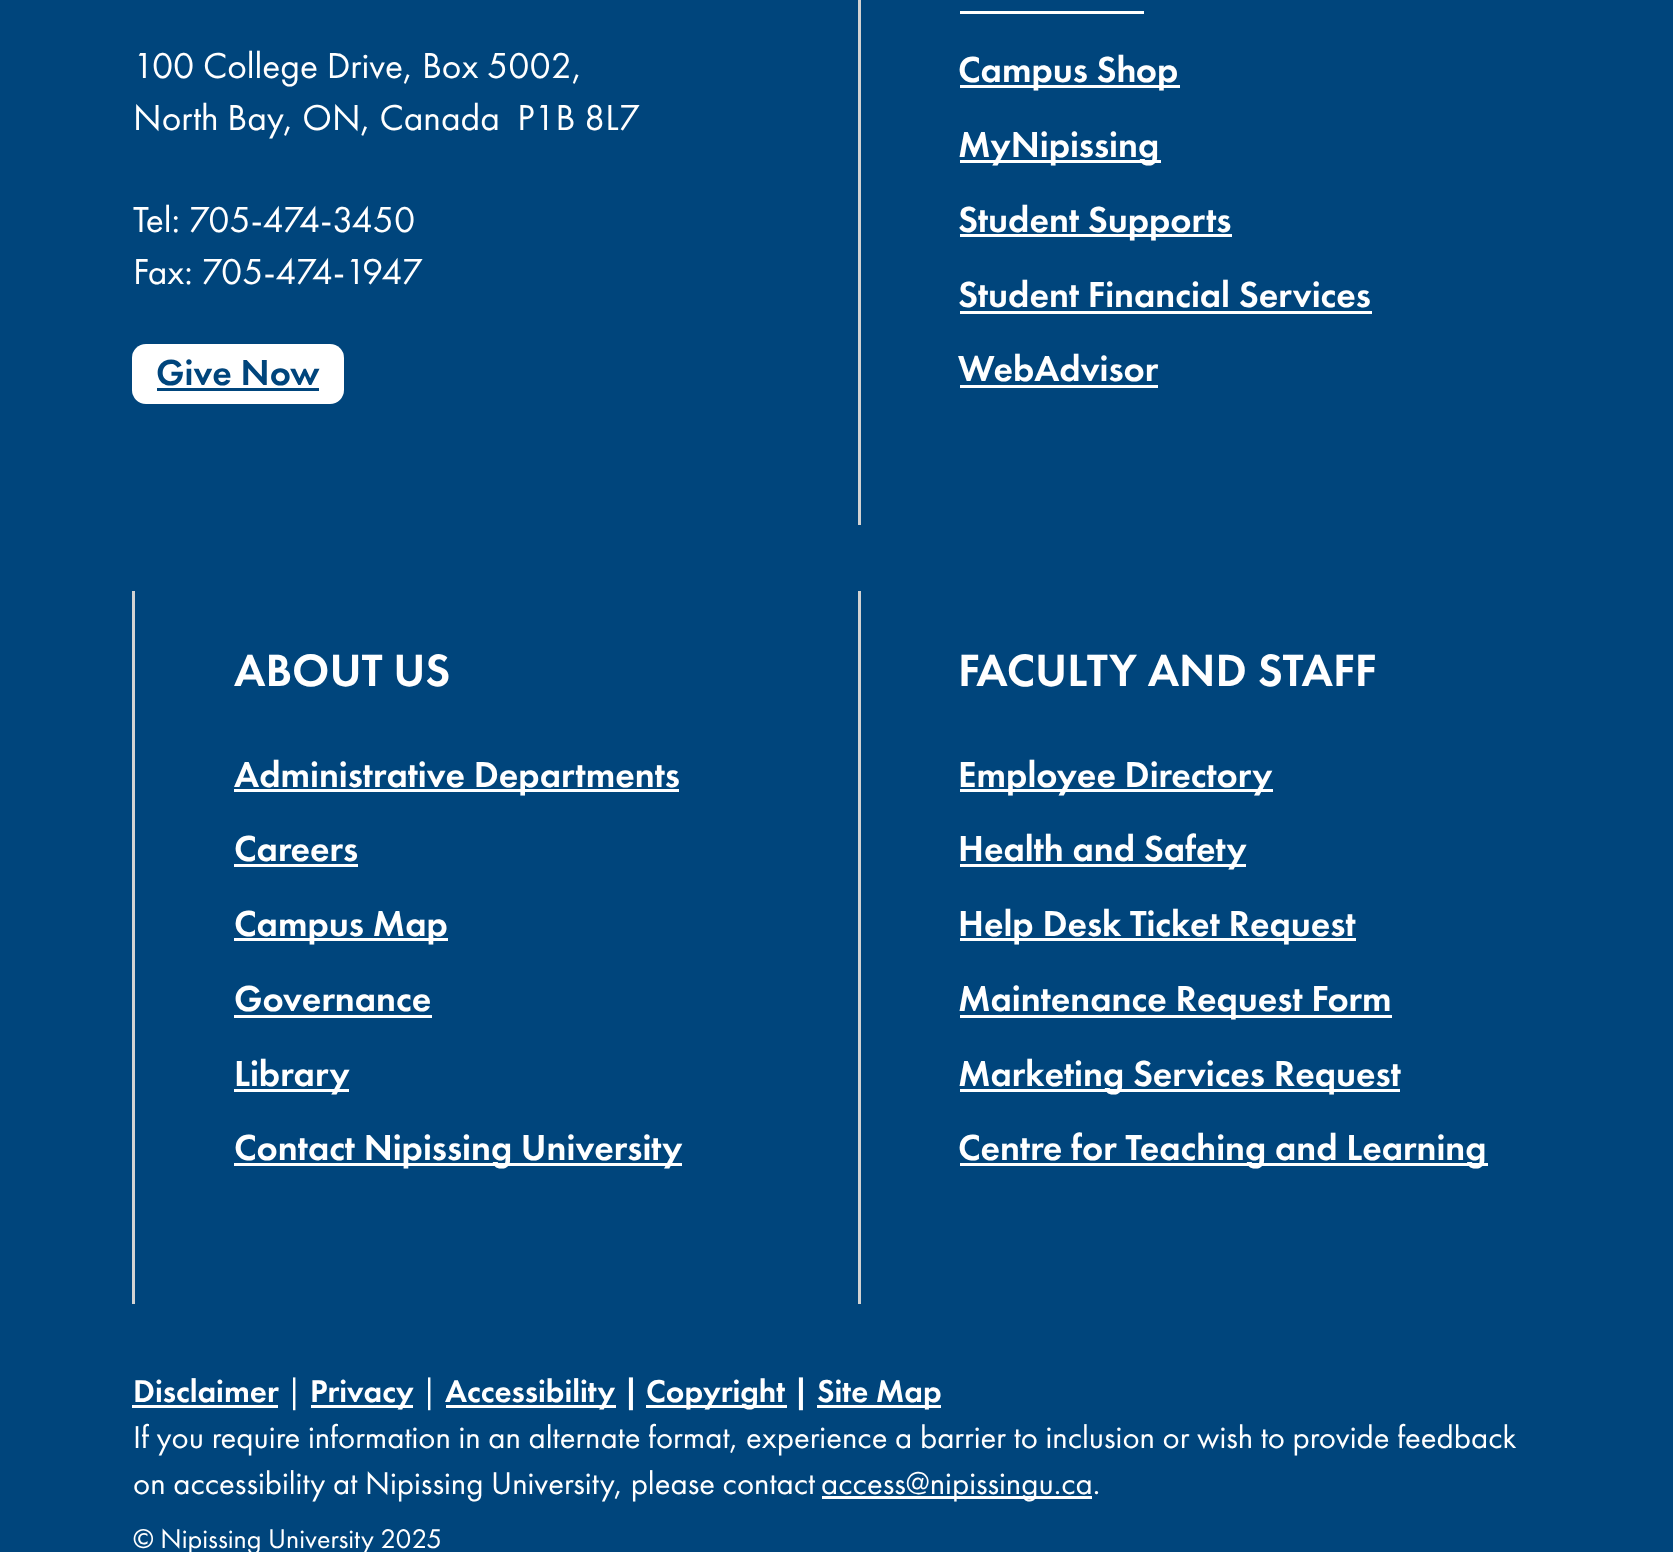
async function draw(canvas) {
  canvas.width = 1673;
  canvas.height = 1552;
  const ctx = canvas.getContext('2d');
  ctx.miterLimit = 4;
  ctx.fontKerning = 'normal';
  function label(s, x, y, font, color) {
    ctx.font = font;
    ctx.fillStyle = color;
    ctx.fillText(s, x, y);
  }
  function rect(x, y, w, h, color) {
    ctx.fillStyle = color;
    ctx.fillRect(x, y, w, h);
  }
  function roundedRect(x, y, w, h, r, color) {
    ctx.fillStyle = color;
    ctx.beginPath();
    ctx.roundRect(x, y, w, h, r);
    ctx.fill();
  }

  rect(0, 0, 1673, 1552, '#00457c');
  label('100 College Drive, Box 5002,', 133, 78, '37.4px Futura PT', '#fff');
  label('North Bay, ON, Canada  P1B 8L7', 133, 130, '37.4px Futura PT', '#fff');
  label('Tel: 705-474-3450', 133, 232, '37.4px Futura PT', '#fff');
  label('Fax: 705-474-1947', 133, 284, '37.4px Futura PT', '#fff');
  roundedRect(132, 344, 212, 60, 14, '#fff');
  label('Give Now', 156, 385, '500 37.4px Futura PT', '#00457c');
  rect(157, 388, 162, 3, '#00457c');
  rect(858, 0, 3, 525, '#d2d2d2');
  rect(960, 11, 184, 3, '#fff');
  rect(960, 85, 220, 3, '#fff');
  label('Campus Shop', 958, 82, '500 37.4px Futura PT', '#fff');
  rect(960, 160, 201, 3, '#fff');
  label('MyNipissing', 958, 157, '500 37.4px Futura PT', '#fff');
  rect(960, 234, 272, 3, '#fff');
  label('Student Supports', 958, 232, '500 37.4px Futura PT', '#fff');
  label('Student Financial Services', 958, 307, '500 37.4px Futura PT', '#fff');
  rect(960, 311, 412, 3, '#fff');
  label('WebAdvisor', 958, 381, '500 37.4px Futura PT', '#fff');
  rect(960, 385, 198, 3, '#fff');
  rect(132, 591, 3, 713, '#d2d2d2');
  label('ABOUT US', 234, 686, '500 46.75px Futura PT', '#fff');
  rect(234, 789, 445, 3, '#fff');
  label('Administrative Departments', 234, 787, '500 37.4px Futura PT', '#fff');
  label('Careers', 234, 861, '500 37.4px Futura PT', '#fff');
  rect(234, 864, 124, 3, '#fff');
  rect(234, 938, 214, 3, '#fff');
  label('Campus Map', 234, 936, '500 37.4px Futura PT', '#fff');
  label('Governance', 234, 1011, '500 37.4px Futura PT', '#fff');
  rect(234, 1015, 198, 3, '#fff');
  rect(234, 1089, 115, 3, '#fff');
  label('Library', 234, 1086, '500 37.4px Futura PT', '#fff');
  rect(234, 1163, 448, 3, '#fff');
  label('Contact Nipissing University', 234, 1160, '500 37.4px Futura PT', '#fff');
  rect(858, 591, 3, 713, '#d2d2d2');
  label('FACULTY AND STAFF', 958, 686, '500 46.75px Futura PT', '#fff');
  rect(960, 789, 313, 3, '#fff');
  label('Employee Directory', 958, 787, '500 37.4px Futura PT', '#fff');
  rect(960, 864, 286, 3, '#fff');
  label('Health and Safety', 958, 861, '500 37.4px Futura PT', '#fff');
  rect(960, 938, 396, 3, '#fff');
  label('Help Desk Ticket Request', 958, 936, '500 37.4px Futura PT', '#fff');
  rect(960, 1015, 432, 3, '#fff');
  label('Maintenance Request Form', 958, 1011, '500 37.4px Futura PT', '#fff');
  rect(960, 1089, 440, 3, '#fff');
  label('Marketing Services Request', 958, 1086, '500 37.4px Futura PT', '#fff');
  rect(960, 1163, 528, 3, '#fff');
  label('Centre for Teaching and Learning', 958, 1160, '500 37.4px Futura PT', '#fff');
  label('Disclaimer', 133, 1402, '500 32.75px Futura PT', '#fff');
  rect(132, 1405, 146, 3, '#fff');
  label('|', 286, 1402, '32.75px Futura PT', '#fff');
  rect(311, 1405, 102, 3, '#fff');
  label('Privacy', 310, 1402, '500 32.75px Futura PT', '#fff');
  label('|', 421, 1402, '32.75px Futura PT', '#fff');
  rect(446, 1405, 170, 3, '#fff');
  label('Accessibility |', 445, 1402, '500 32.75px Futura PT', '#fff');
  rect(646, 1405, 141, 3, '#fff');
  label('Copyright |', 646, 1402, '500 32.75px Futura PT', '#fff');
  rect(817, 1405, 124, 3, '#fff');
  label('Site Map', 817, 1402, '500 32.75px Futura PT', '#fff');
  label('If you require information in an alternate format, experience a barrier to inclusion or wish to provide feedback', 133, 1448, '32.75px Futura PT', '#fff');
  label('on accessibility at Nipissing University, please contact', 133, 1494, '32.75px Futura PT', '#fff');
  rect(822, 1496, 270, 3, '#fff');
  label('access@nipissingu.ca.', 821, 1494, '32.75px Futura PT', '#fff');
  label('© Nipissing University 2025', 133, 1548, '28px Futura PT', '#fff');
}

draw(document.querySelector('canvas'));
